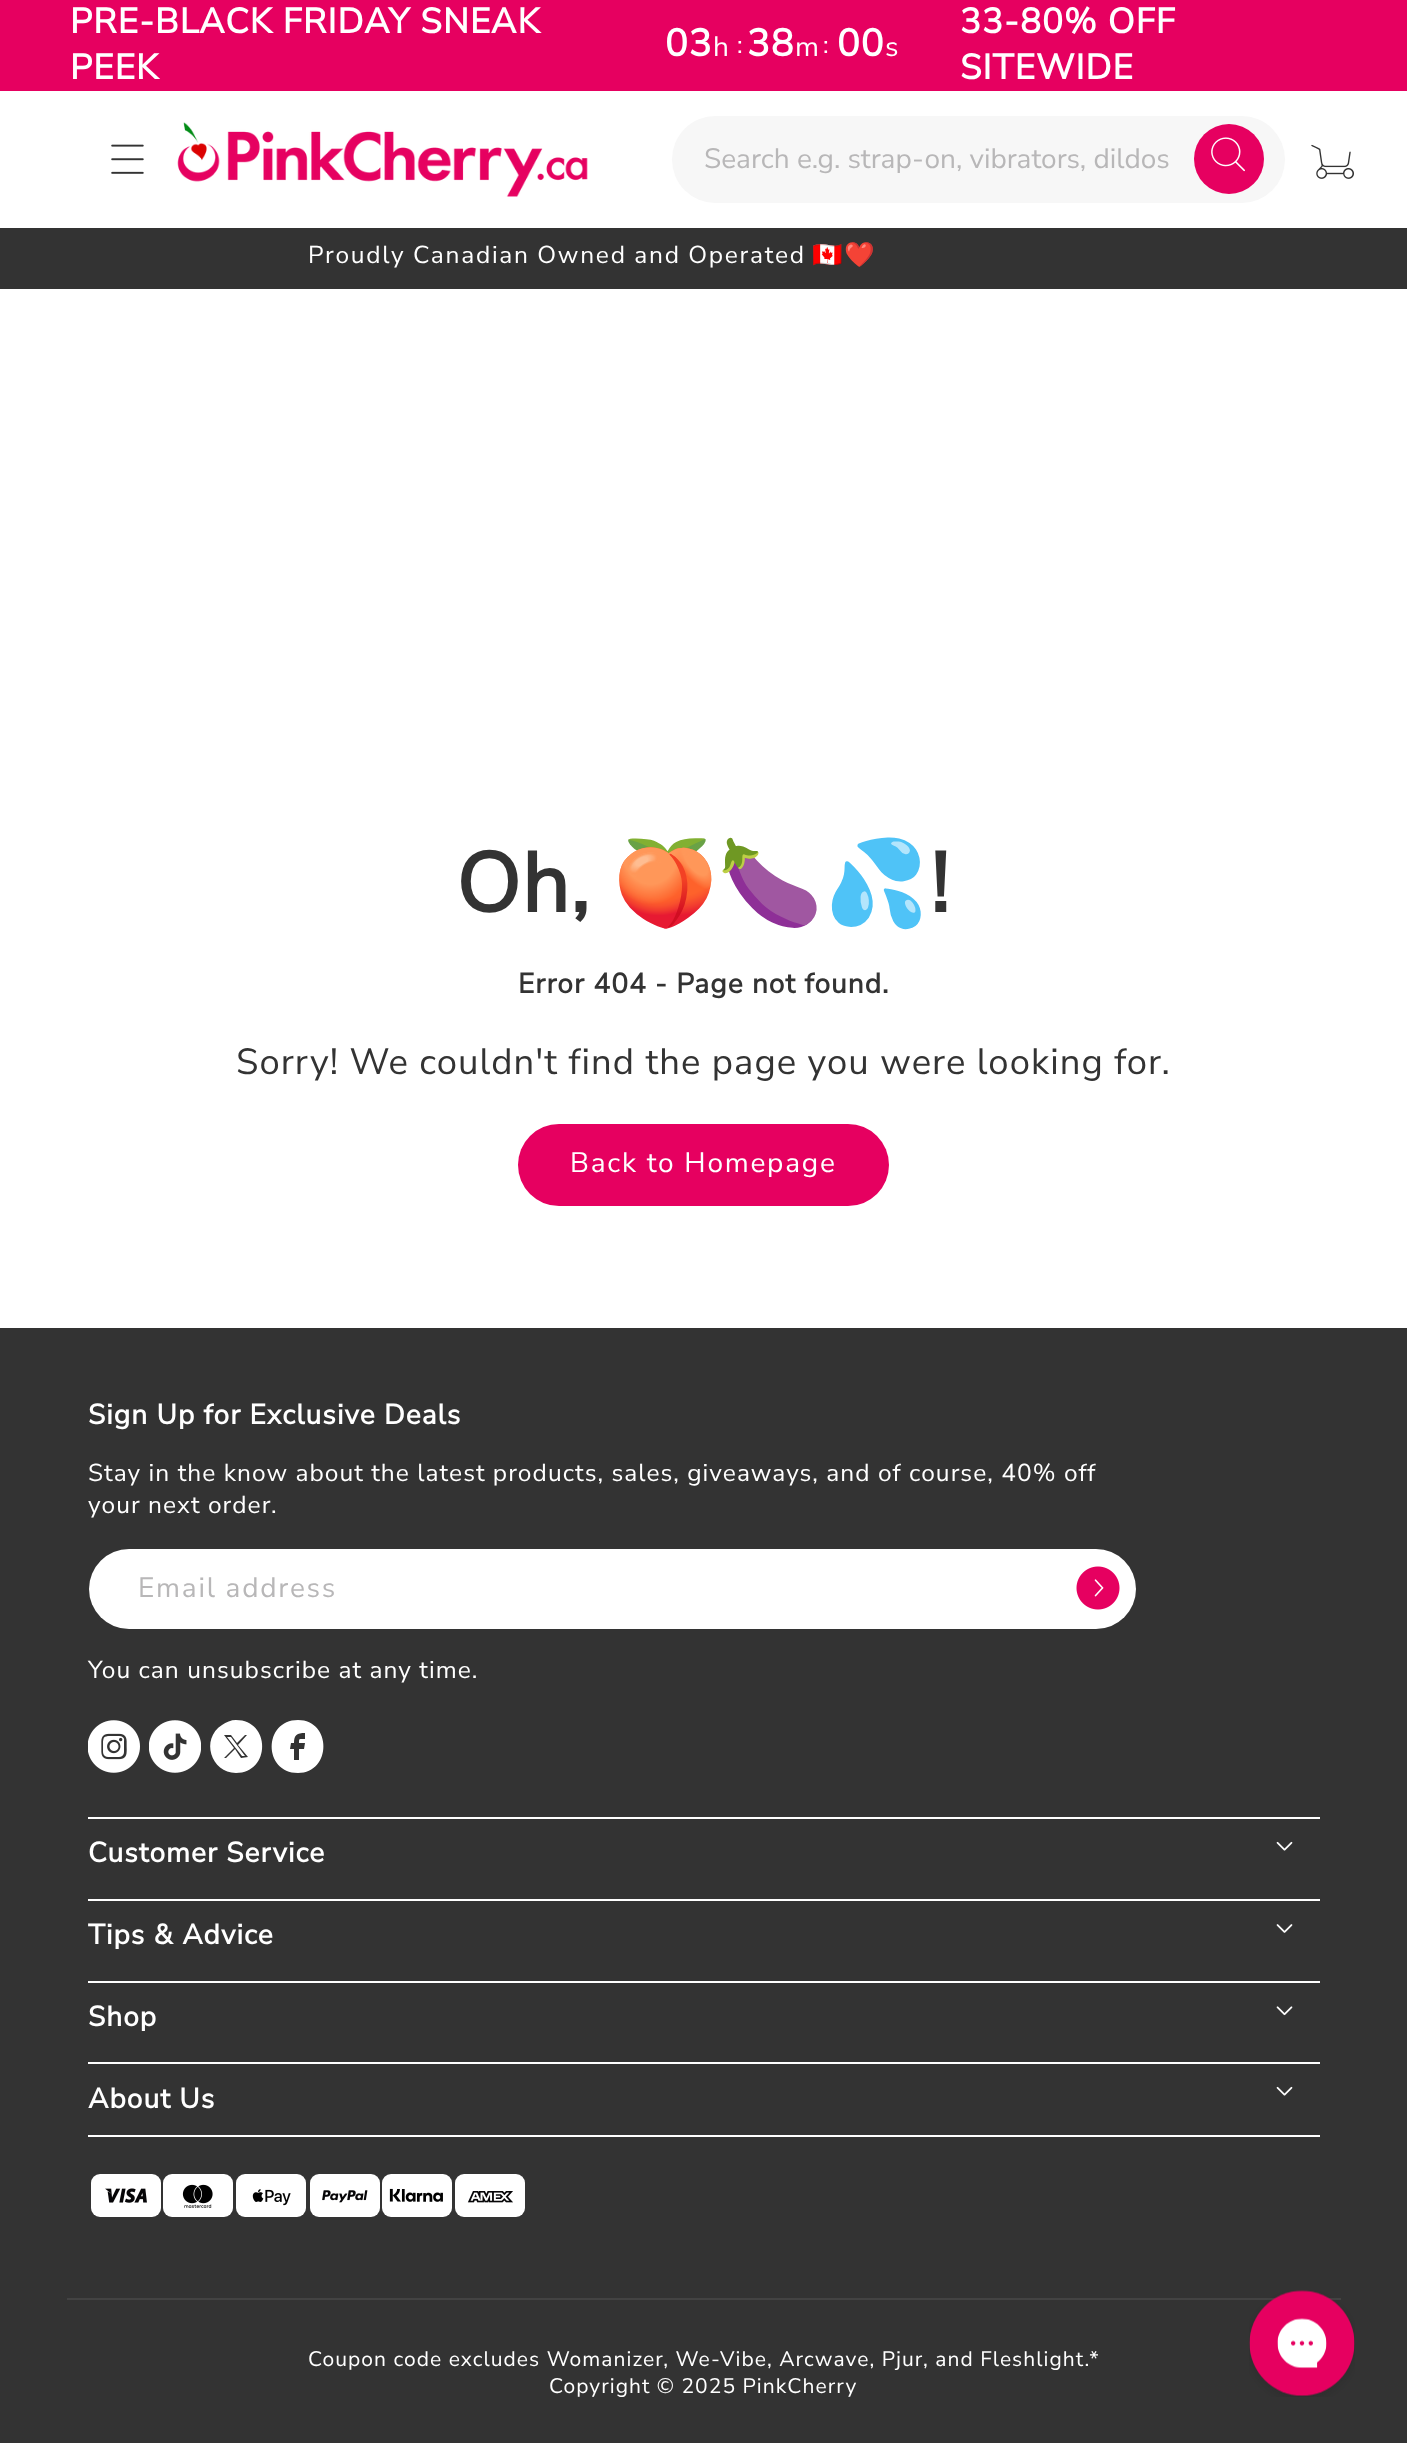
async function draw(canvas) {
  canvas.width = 1407;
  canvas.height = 2443;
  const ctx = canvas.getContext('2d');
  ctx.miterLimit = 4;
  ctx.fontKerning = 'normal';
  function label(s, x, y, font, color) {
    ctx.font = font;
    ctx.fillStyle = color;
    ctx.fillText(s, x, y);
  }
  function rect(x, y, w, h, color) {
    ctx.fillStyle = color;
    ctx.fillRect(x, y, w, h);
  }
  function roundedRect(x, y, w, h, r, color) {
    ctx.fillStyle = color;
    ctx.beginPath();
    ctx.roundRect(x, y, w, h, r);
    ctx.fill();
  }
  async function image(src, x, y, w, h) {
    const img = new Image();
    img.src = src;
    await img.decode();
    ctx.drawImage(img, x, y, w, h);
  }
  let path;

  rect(0, 0, 1407, 2443, '#fff');
  rect(0, 0, 1407, 91, '#e60060');
  ctx.letterSpacing = '1.05px';
  label('PRE-BLACK FRIDAY SNEAK', 70, 33, 'bold 35px Nunito Sans', '#fff');
  label('PEEK', 70, 79, 'bold 35px Nunito Sans', '#fff');
  label('03', 665, 56, 'bold 38px Nunito Sans', '#fff');
  label('h', 713, 56, '28px Nunito Sans', '#fff');
  label(':', 737, 53, '24.5px Nunito Sans', '#fff');
  label('38', 747, 56, 'bold 38px Nunito Sans', '#fff');
  label('m', 795, 56, '28px Nunito Sans', '#fff');
  label(':', 823, 53, '24.5px Nunito Sans', '#fff');
  label('00', 837, 56, 'bold 38px Nunito Sans', '#fff');
  label('s', 885, 56, '28px Nunito Sans', '#fff');
  label('33-80% OFF', 960, 33, 'bold 35px Nunito Sans', '#fff');
  label('SITEWIDE', 960, 79, 'bold 35px Nunito Sans', '#fff');
  await image('assets/img1.png', 111, 144, 33, 30);
  await image('assets/img2.png', 177, 122, 411, 75);
  roundedRect(672, 116, 613, 87, 43.5, '#f7f7f7');
  ctx.letterSpacing = '0px';
  label('Search e.g. strap-on, vibrators, dildos', 704, 168, '28px Nunito Sans', '#b8b7b8');
  ctx.fillStyle = '#e60060';
  ctx.beginPath();
  ctx.arc(1229, 159, 35, 0, 2 * Math.PI);
  ctx.fill();
  await image('assets/img3.png', 1211, 137, 34, 35);
  await image('assets/img4.png', 1311, 144, 43, 35);
  rect(0, 228, 1407, 61, '#333');
  ctx.letterSpacing = '1.75px';
  ctx.wordSpacing = '-0.5px';
  label('Proudly Canadian Owned and Operated', 308, 263, '24.5px Nunito Sans', '#fff');
  ctx.wordSpacing = '0px';
  label('🇨🇦❤️', 812, 263, '24.5px Noto Color Emoji', '#fff');
  ctx.letterSpacing = '1.05px';
  label('Oh,', 456, 912, 'bold 84px Nunito Sans', '#333');
  label('🍑🍆💦', 613, 912, 'bold 84px Noto Color Emoji', '#333');
  label('!', 930, 912, 'bold 84px Nunito Sans', '#333');
  label('Error 404 - Page not found.', 518, 993, 'bold 28px Nunito Sans', '#333');
  label('Sorry! We couldn\'t find the page you were looking for.', 236, 1074, '36.4px Nunito Sans', '#333');
  roundedRect(518, 1124, 371, 82, 41, '#e60060');
  ctx.letterSpacing = '1.75px';
  label('Back to Homepage', 570, 1172, '28px Nunito Sans', '#fff');
  rect(0, 1328, 1407, 1115, '#333');
  ctx.letterSpacing = '1.05px';
  label('Sign Up for Exclusive Deals', 88, 1424, 'bold 28px Nunito Sans', '#fff');
  label('Stay in the know about the latest products, sales, giveaways, and of course, 40% off', 88, 1481, '24.5px Nunito Sans', '#fff');
  label('your next order.', 88, 1513, '24.5px Nunito Sans', '#fff');
  roundedRect(89, 1549, 1047, 80, 40, '#fff');
  ctx.letterSpacing = '1.75px';
  label('Email address', 138, 1597, '28px Nunito Sans', '#b8b7b8');
  await image('assets/img5.png', 1076, 1566, 44, 44);
  ctx.letterSpacing = '1.05px';
  label('You can unsubscribe at any time.', 88, 1678, '24.5px Nunito Sans', '#fff');
  await image('assets/img6.png', 88, 1720, 52, 53);
  await image('assets/img7.png', 149, 1720, 52, 53);
  path = new Path2D('M236 1720C231 1720 226 1722 222 1725C200 1739 211 1773 236 1773C271 1773 271 1720 236 1720ZM227 1737L242 1756H245L231 1737ZM241 1758L235 1749L226 1758H224L234 1748L224 1735H231L237 1743L245 1735H247L238 1745L248 1757Z');
  ctx.fill(path);
  path = new Path2D('M298 1720C263 1720 263 1773 298 1773C332 1773 332 1720 298 1720ZM304 1749H299V1760H294V1749H290L291 1743H294C294 1735 297 1733 305 1733V1739C299 1739 299 1738 299 1743H305Z');
  ctx.fill(path);
  rect(88, 1817, 1232, 2, '#fff');
  label('Customer Service', 88, 1862, 'bold 28px Nunito Sans', '#fff');
  await image('assets/img8.png', 1276, 1841, 17, 10);
  rect(88, 1899, 1232, 2, '#fff');
  label('Tips & Advice', 88, 1944, 'bold 28px Nunito Sans', '#fff');
  await image('assets/img9.png', 1276, 1924, 17, 9);
  rect(88, 1981, 1232, 2, '#fff');
  label('Shop', 88, 2026, 'bold 28px Nunito Sans', '#fff');
  await image('assets/img10.png', 1276, 2006, 17, 10);
  rect(88, 2062, 1232, 2, '#fff');
  rect(88, 2135, 1232, 2, '#fff');
  label('About Us', 88, 2108, 'bold 28px Nunito Sans', '#fff');
  await image('assets/img8.png', 1276, 2086, 17, 10);
  roundedRect(91, 2174, 70, 43, 9, '#fff');
  await image('assets/img11.png', 105, 2188, 42, 15);
  roundedRect(163, 2174, 70, 43, 9, '#fff');
  await image('assets/img12.png', 182, 2184, 31, 24);
  roundedRect(236, 2174, 70, 43, 9, '#fff');
  await image('assets/img13.png', 252, 2189, 39, 17);
  roundedRect(310, 2174, 70, 43, 9, '#fff');
  await image('assets/img14.png', 322, 2190, 46, 13);
  roundedRect(382, 2174, 70, 43, 9, '#fff');
  await image('assets/img15.png', 389, 2188, 54, 14);
  roundedRect(455, 2174, 70, 43, 9, '#fff');
  await image('assets/img16.png', 467, 2191, 46, 12);
  rect(67, 2298, 1274, 2, '#434343');
  label('Coupon code excludes Womanizer, We-Vibe, Arcwave, Pjur, and Fleshlight.*', 308, 2366, '21px Nunito Sans', '#fff');
  label('Copyright © 2025 PinkCherry', 549, 2393, '21px Nunito Sans', '#fff');
  await image('assets/img17.png', 1249, 2290, 106, 107);
}

draw(document.querySelector('canvas'));
